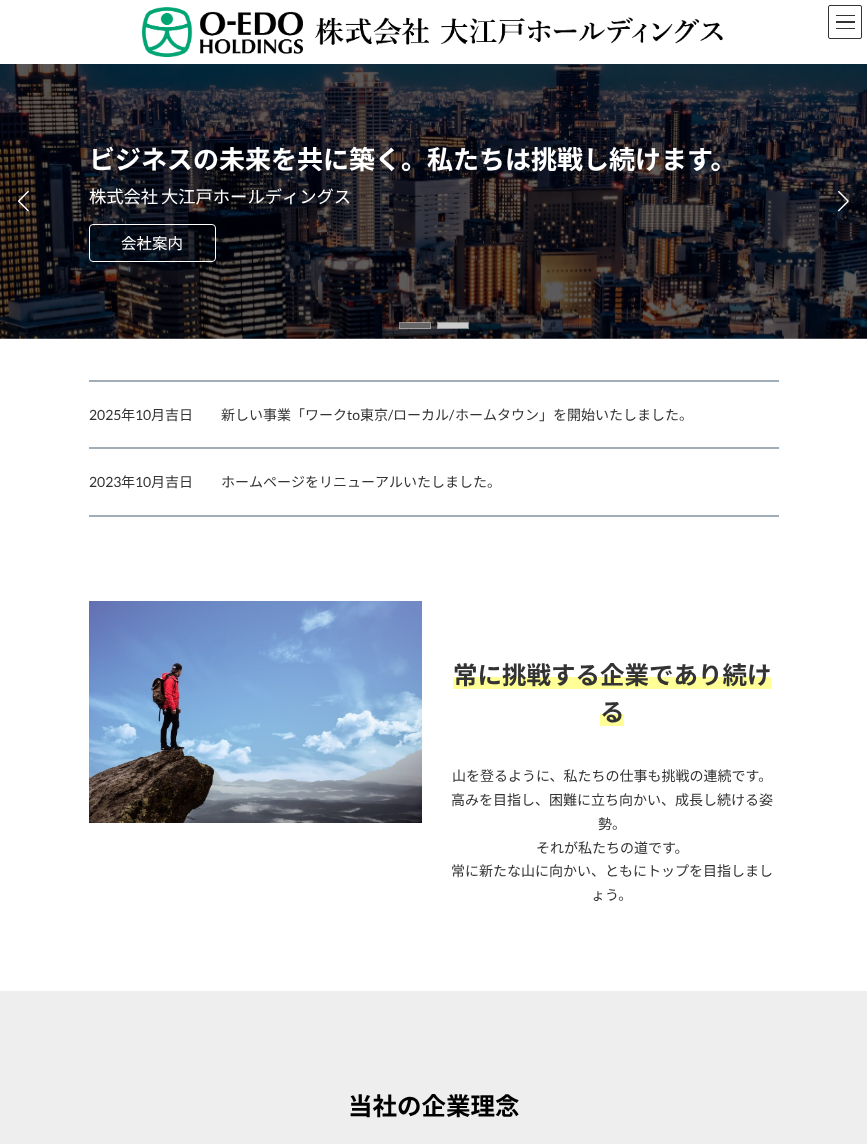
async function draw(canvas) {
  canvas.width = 867;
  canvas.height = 1144;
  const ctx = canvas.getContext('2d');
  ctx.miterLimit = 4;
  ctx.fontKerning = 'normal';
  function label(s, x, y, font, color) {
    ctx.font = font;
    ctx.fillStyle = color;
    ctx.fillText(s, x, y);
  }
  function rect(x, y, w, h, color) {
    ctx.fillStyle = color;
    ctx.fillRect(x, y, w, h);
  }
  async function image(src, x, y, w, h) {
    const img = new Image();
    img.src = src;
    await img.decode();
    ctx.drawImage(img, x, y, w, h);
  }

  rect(0, 0, 867, 1144, '#fff');
  await image('assets/img1.png', 142, 7, 581, 50);
  rect(836, 15, 19, 1, '#333');
  rect(836, 21, 19, 2, '#333');
  rect(836, 28, 19, 1, '#333');
  ctx.beginPath();
  ctx.roundRect(828.5, 5.5, 33, 33, 1.5);
  ctx.strokeStyle = '#333';
  ctx.stroke();
  await image('assets/img3.png', 0, 64, 867, 275);
  await image('assets/img2.png', 18, 190, 11, 22);
  label('ビジネスの未来を共に築く。私たちは挑戦し続けます。', 89, 169, 'bold 26px Noto Sans JP', '#fff');
  ctx.wordSpacing = '-1px';
  label('株式会社 大江戸ホールディングス', 89, 203, '17.3px Noto Sans JP', '#fff');
  ctx.beginPath();
  ctx.roundRect(89.5, 224.5, 126, 37, 3.5);
  ctx.strokeStyle = '#fff';
  ctx.stroke();
  ctx.wordSpacing = '0px';
  label('会社案内', 121, 249, '15.5px Noto Sans JP', '#fff');
  await image('assets/img4.png', 838, 190, 11, 22);
  rect(400, 323, 30, 5, '#666');
  ctx.strokeStyle = '#ffffff80';
  ctx.strokeRect(399.5, 322.5, 31, 6);
  rect(438, 323, 30, 5, '#ccc');
  ctx.strokeRect(437.5, 322.5, 31, 6);
  rect(89, 380, 690, 2, '#a1adb7');
  label('2025', 89, 420, '14px Lato', '#333');
  label('年', 121, 420, '14px Noto Sans JP', '#333');
  label('10', 135, 420, '14px Lato', '#333');
  label('月吉日　　新しい事業「ワーク', 151, 420, '14px Noto Sans JP', '#333');
  label('to', 347, 420, '14px Lato', '#333');
  label('東京', 360, 420, '14px Noto Sans JP', '#333');
  label('/', 388, 420, '14px Lato', '#333');
  label('ローカル', 393, 420, '14px Noto Sans JP', '#333');
  label('/', 449, 420, '14px Lato', '#333');
  label('ホームタウン」を開始いたしました。', 455, 420, '14px Noto Sans JP', '#333');
  rect(89, 447, 690, 2, '#a1adb7');
  label('2023', 89, 487, '14px Lato', '#333');
  label('年', 121, 487, '14px Noto Sans JP', '#333');
  label('10', 135, 487, '14px Lato', '#333');
  label('月吉日　　ホームページをリニューアルいたしました。', 151, 487, '14px Noto Sans JP', '#333');
  rect(89, 515, 690, 2, '#a1adb7');
  await image('assets/img5.png', 89, 601, 333, 222);
  rect(453, 677, 318, 12, '#fffe97');
  label('常に挑戦する企業であり続け', 453, 684, 'bold 24.5px Noto Sans JP', '#333');
  rect(600, 714, 24, 12, '#fffe97');
  label('る', 600, 721, 'bold 24.5px Noto Sans JP', '#333');
  label('山を登るように、私たちの仕事も挑戦の連続です。', 452, 781, '14px Noto Sans JP', '#333');
  label('高みを目指し、困難に立ち向かい、成長し続ける姿', 451, 805, '14px Noto Sans JP', '#333');
  label('勢。', 598, 829, '14px Noto Sans JP', '#333');
  label('それが私たちの道です。', 536, 853, '14px Noto Sans JP', '#333');
  label('常に新たな山に向かい、ともにトップを目指しまし', 451, 876, '14px Noto Sans JP', '#333');
  label('ょう。', 591, 900, '14px Noto Sans JP', '#333');
  rect(0, 991, 867, 153, '#eee');
  label('当社の企業理念', 348, 1115, 'bold 24.5px Noto Sans JP', '#000');
}

draw(document.querySelector('canvas'));
